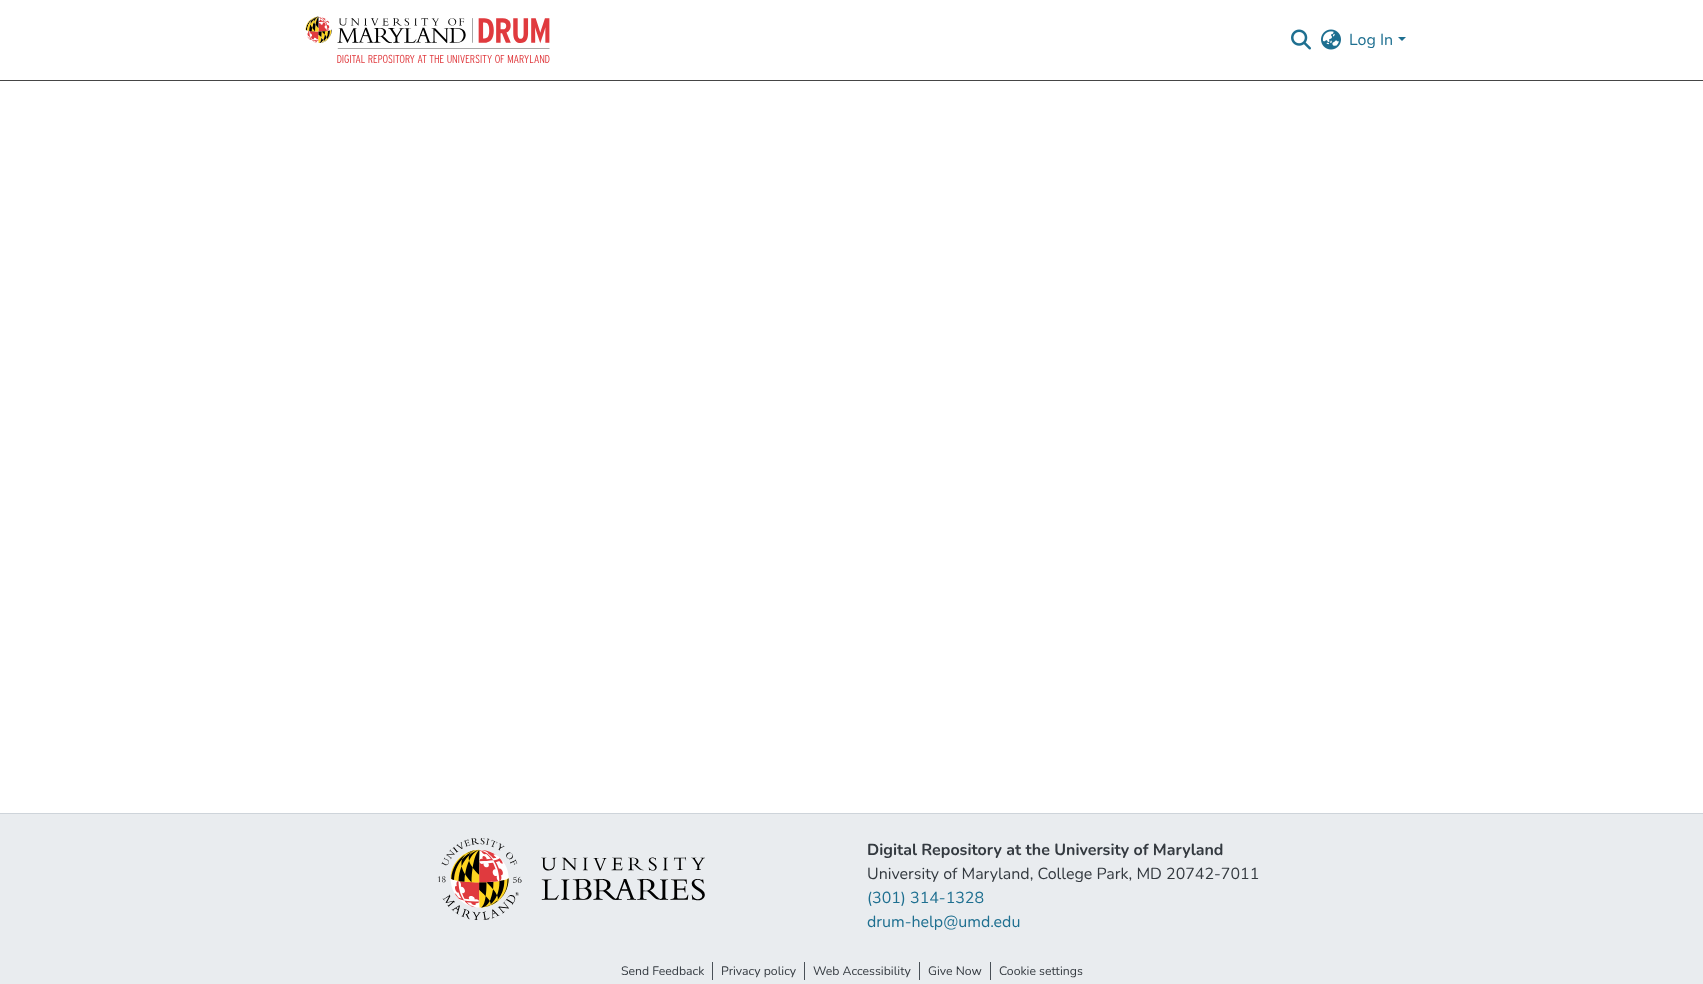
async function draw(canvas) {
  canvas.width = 1703;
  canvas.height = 984;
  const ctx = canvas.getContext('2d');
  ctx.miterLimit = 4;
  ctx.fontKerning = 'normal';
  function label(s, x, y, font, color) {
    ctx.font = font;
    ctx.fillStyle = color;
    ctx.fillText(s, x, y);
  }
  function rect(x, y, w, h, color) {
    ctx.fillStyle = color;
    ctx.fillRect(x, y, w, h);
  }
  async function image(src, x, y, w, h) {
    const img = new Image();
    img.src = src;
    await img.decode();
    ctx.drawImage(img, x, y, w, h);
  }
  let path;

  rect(0, 0, 1703, 984, '#fff');
  rect(0, 80, 1703, 1, '#454545');
  await image('assets/img1.png', 305, 16, 245, 47);
  await image('assets/img2.png', 1291, 29, 20, 21);
  await image('assets/img3.png', 1321, 29, 20, 21);
  label('Log In', 1349, 45, '16px Nunito', '#1e6f90');
  path = new Path2D('M1398 37H1406L1402 41Z');
  ctx.fill(path);
  rect(0, 814, 1703, 170, '#e9ecef');
  rect(0, 813, 1703, 1, '#ced4da');
  await image('assets/img4.png', 437, 838, 268, 82);
  label('Digital Repository at the University of Maryland', 867, 855, 'bold 16px Nunito', '#343a40');
  label('University of Maryland, College Park, MD 20742-7011', 867, 879, '16px Nunito', '#343a40');
  label('(301) 314-1328', 867, 903, '16px Nunito', '#1e6f90');
  label('drum-help@umd.edu', 867, 927, '16px Nunito', '#1e6f90');
  label('Send Feedback', 621, 975, '12.25px Nunito', '#343a40');
  rect(712, 962, 1, 18, '#495057');
  label('Privacy policy', 721, 975, '12.25px Nunito', '#343a40');
  rect(804, 962, 1, 18, '#495057');
  label('Web Accessibility', 813, 975, '12.25px Nunito', '#343a40');
  rect(919, 962, 1, 18, '#495057');
  label('Give Now', 928, 975, '12.25px Nunito', '#343a40');
  rect(990, 962, 1, 18, '#495057');
  label('Cookie settings', 999, 975, '12.25px Nunito', '#343a40');
}

draw(document.querySelector('canvas'));
